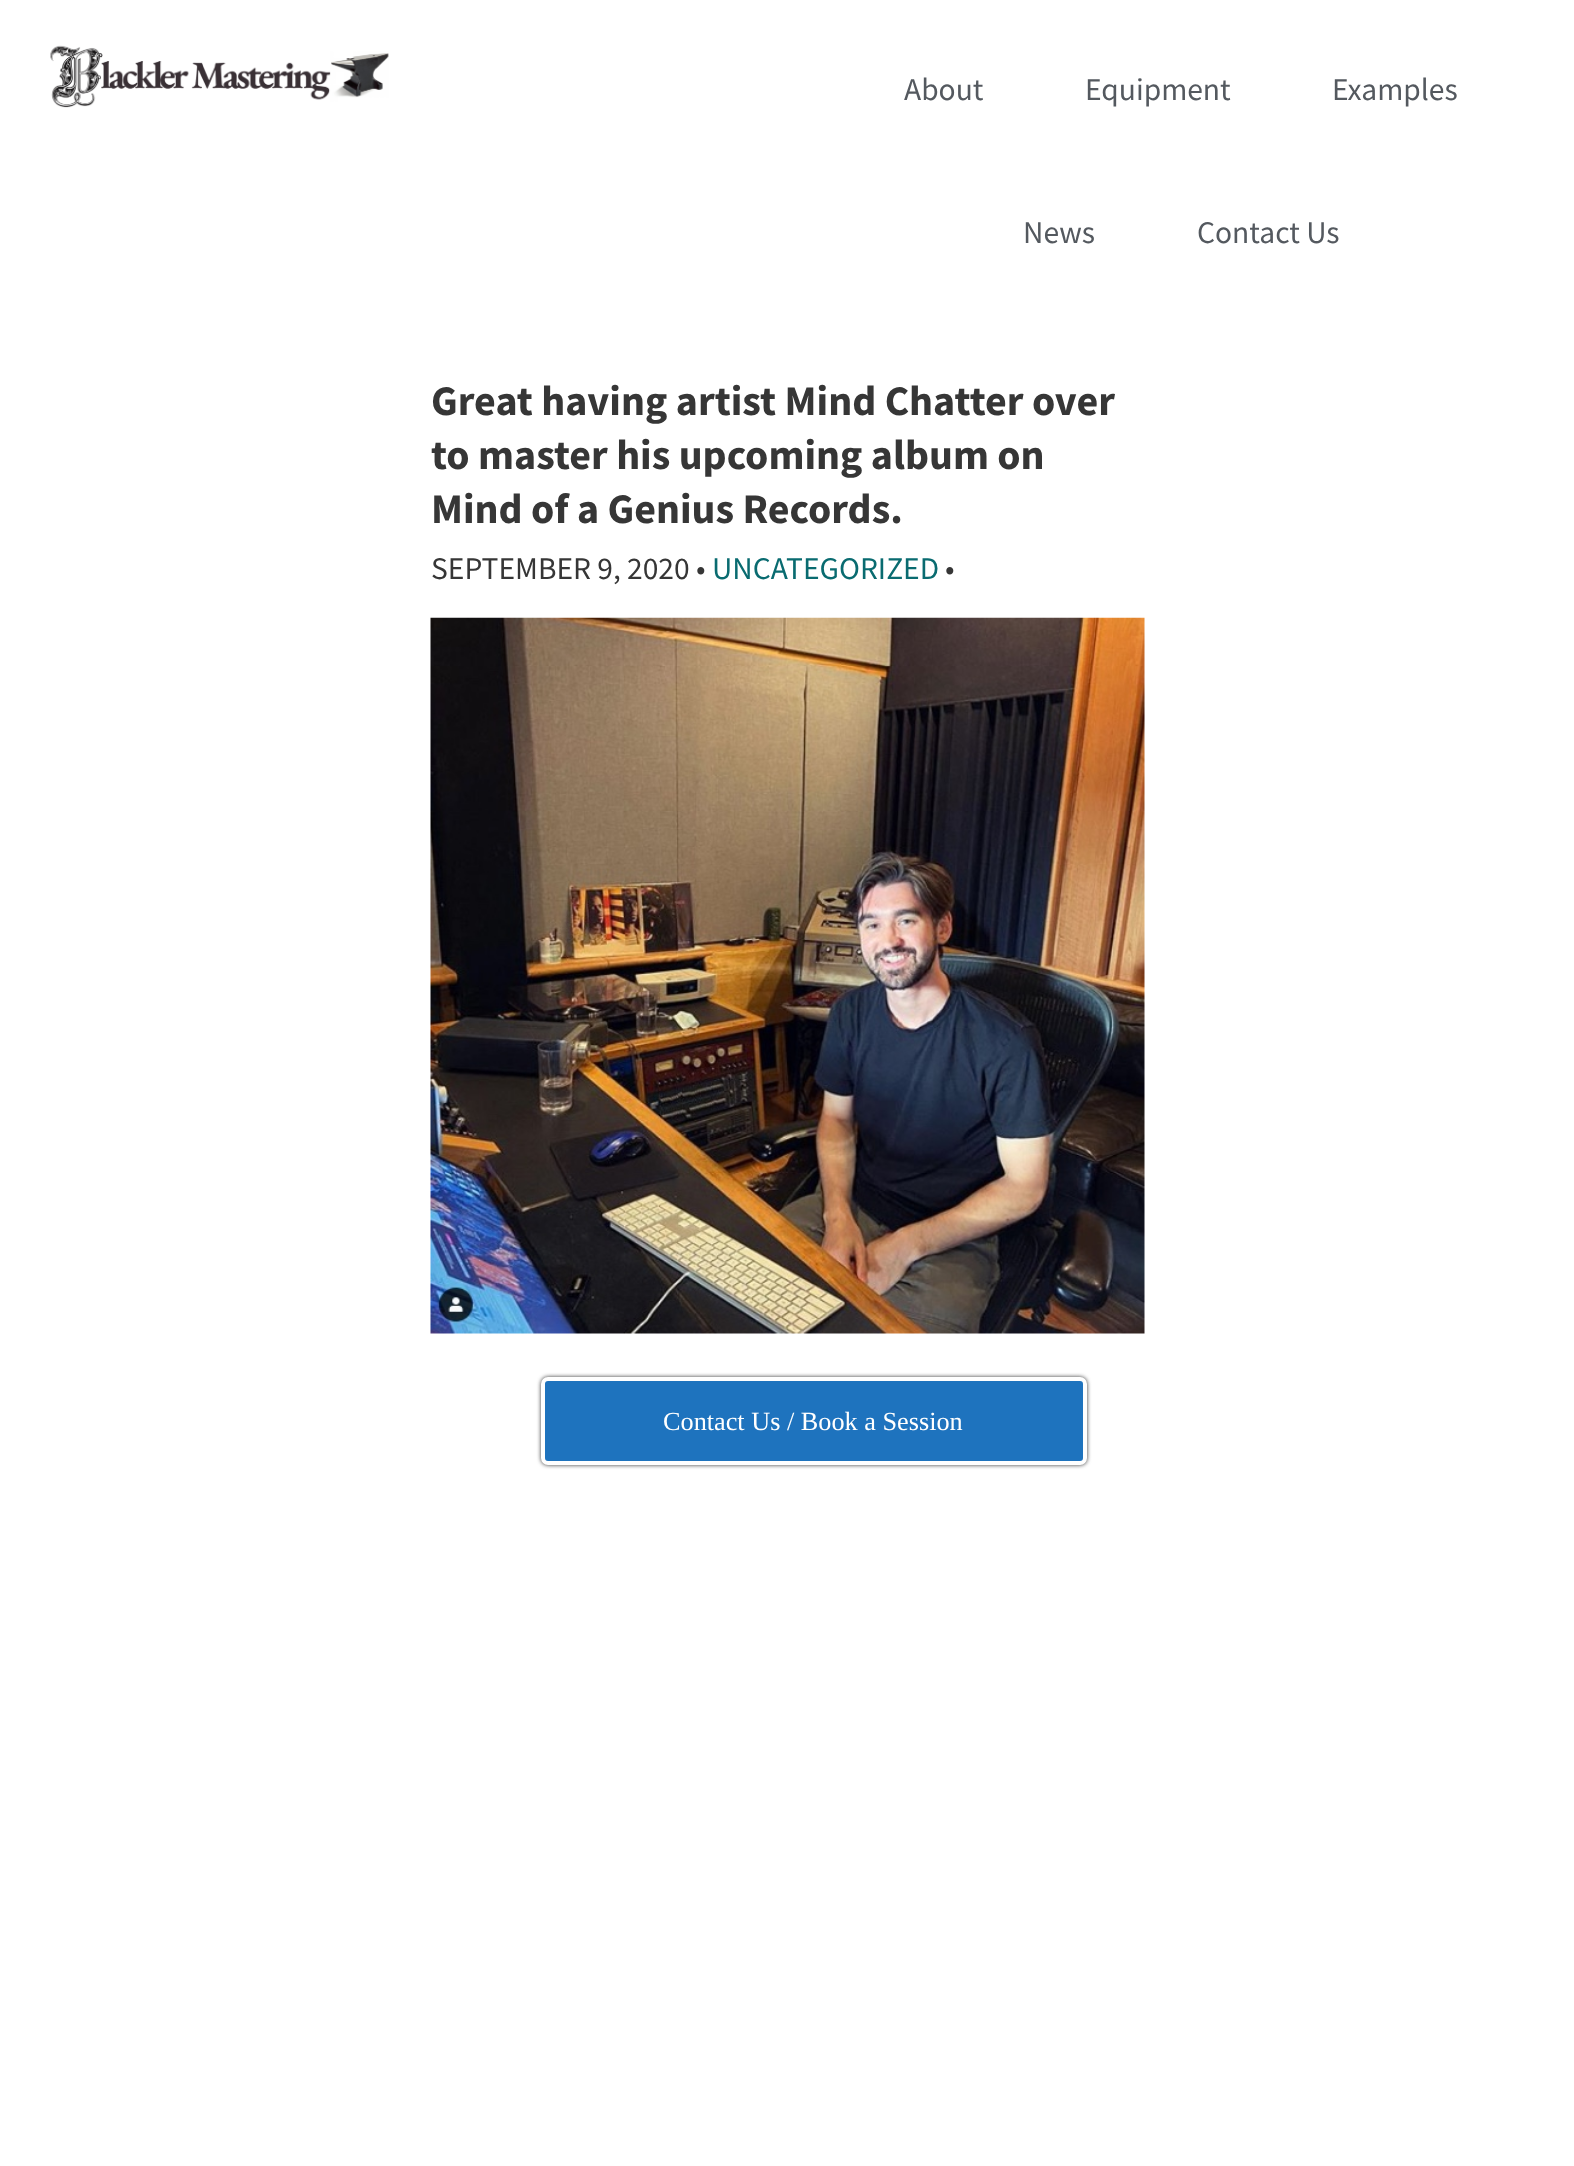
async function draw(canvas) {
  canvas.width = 1574;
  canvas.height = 2166;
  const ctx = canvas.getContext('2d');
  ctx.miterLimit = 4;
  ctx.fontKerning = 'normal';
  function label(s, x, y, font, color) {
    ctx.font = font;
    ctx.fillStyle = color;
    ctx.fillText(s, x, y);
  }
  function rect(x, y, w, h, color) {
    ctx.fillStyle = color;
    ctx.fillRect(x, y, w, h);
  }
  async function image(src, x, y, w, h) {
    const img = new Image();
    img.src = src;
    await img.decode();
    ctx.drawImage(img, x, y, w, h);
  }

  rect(0, 0, 1574, 2166, '#fff');
  await image('assets/img1.png', 50, 45, 339, 63);
  label('About', 904, 100, '31.5px Source Sans Pro', '#54595f');
  label('Equipment', 1085, 100, '31.5px Source Sans Pro', '#54595f');
  label('Examples', 1332, 100, '31.5px Source Sans Pro', '#54595f');
  label('News', 1023, 243, '31.5px Source Sans Pro', '#54595f');
  label('Contact Us', 1197, 243, '31.5px Source Sans Pro', '#54595f');
  label('Great having artist Mind Chatter over', 431, 415, 'bold 42px Source Sans Pro', '#363636');
  label('to master his upcoming album on', 431, 469, 'bold 42px Source Sans Pro', '#363636');
  label('Mind of a Genius Records.', 431, 523, 'bold 42px Source Sans Pro', '#363636');
  label('SEPTEMBER 9, 2020 •', 431, 579, '31.5px Source Sans Pro', '#363636');
  label('UNCATEGORIZED', 712, 579, '31.5px Source Sans Pro', '#096b70');
  label('•', 945, 579, '31.5px Source Sans Pro', '#363636');
  await image('assets/img2.png', 430, 617, 715, 717);
  ctx.fillStyle = '#333';
  ctx.filter = 'blur(2px)';
  ctx.beginPath();
  ctx.roundRect(541, 1377, 546, 88, 7);
  ctx.fill();
  ctx.filter = 'none';
  ctx.fillStyle = '#1e73be';
  ctx.beginPath();
  ctx.roundRect(543, 1379, 542, 84, 5);
  ctx.fill();
  ctx.strokeStyle = '#fff';
  ctx.lineWidth = 4;
  ctx.stroke();
  label('Contact Us / Book a Session', 663, 1430, '26.25px Liberation Serif', '#fff');
}

draw(document.querySelector('canvas'));
